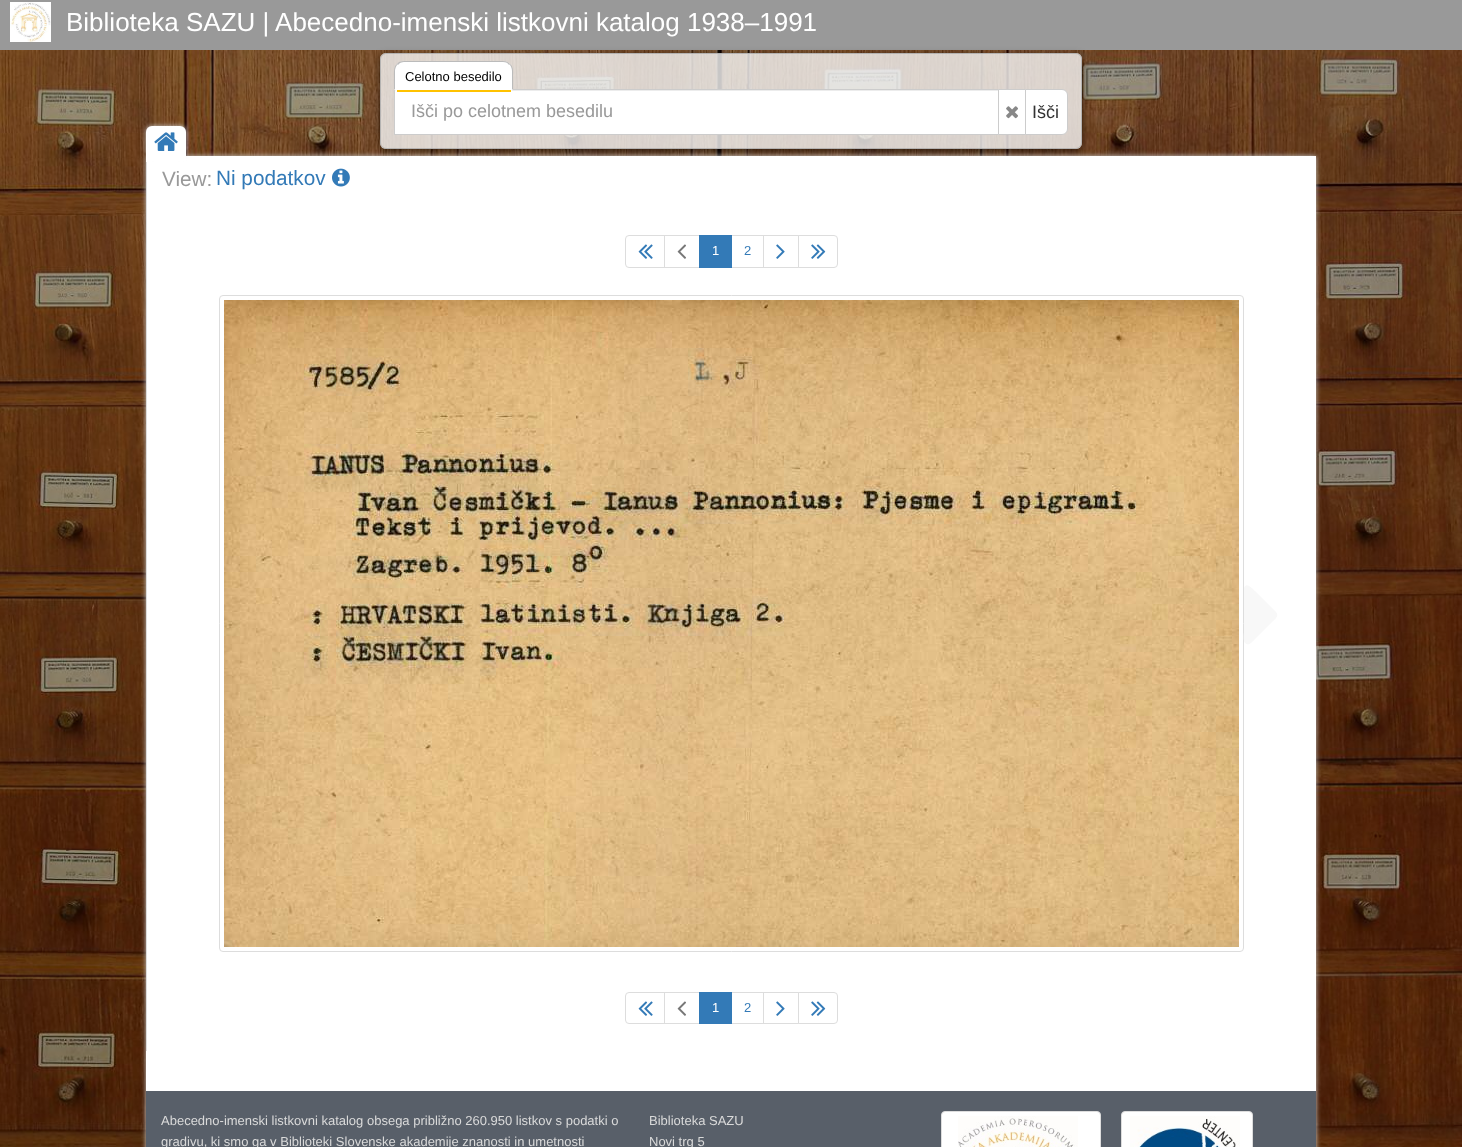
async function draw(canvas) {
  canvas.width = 1462;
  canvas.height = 1147;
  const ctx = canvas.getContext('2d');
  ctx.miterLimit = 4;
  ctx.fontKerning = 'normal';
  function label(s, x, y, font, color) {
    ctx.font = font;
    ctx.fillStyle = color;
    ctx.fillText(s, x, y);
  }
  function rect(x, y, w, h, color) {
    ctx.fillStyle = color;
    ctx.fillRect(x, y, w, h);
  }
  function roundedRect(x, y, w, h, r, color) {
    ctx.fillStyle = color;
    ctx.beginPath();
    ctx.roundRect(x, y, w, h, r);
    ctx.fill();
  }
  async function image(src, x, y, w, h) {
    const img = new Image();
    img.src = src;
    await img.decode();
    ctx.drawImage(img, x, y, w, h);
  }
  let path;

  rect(0, 0, 1462, 1147, '#fff');
  rect(0, 0, 1462, 50, '#999');
  await image('assets/img1.png', 10, 2, 41, 40);
  label('Biblioteka SAZU | Abecedno-imenski listkovni katalog 1938–1991', 66, 31, '26px Liberation Sans', '#fff');
  await image('assets/img3.png', 0, 50, 1462, 1097);
  ctx.save();
  path = new Path2D('M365 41H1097V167H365ZM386 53H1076C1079.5 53 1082 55.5 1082 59V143C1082 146.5 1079.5 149 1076 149H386C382.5 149 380 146.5 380 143V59C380 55.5 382.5 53 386 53Z');
  ctx.clip(path, 'evenodd');
  ctx.fillStyle = '#00000080';
  ctx.filter = 'blur(4.5px)';
  ctx.beginPath();
  ctx.roundRect(380, 56, 702, 96, 6);
  ctx.fill();
  ctx.filter = 'none';
  ctx.restore();
  ctx.fillStyle = '#ccc';
  ctx.filter = 'blur(2.5px)';
  ctx.beginPath();
  ctx.rect(146, 156, 1170, 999);
  ctx.fill();
  ctx.filter = 'none';
  roundedRect(380, 53, 702, 96, 6, '#f8f8f8cc');
  ctx.beginPath();
  ctx.roundRect(380.5, 53.5, 701, 95, 5.5);
  ctx.strokeStyle = '#aaaaaacc';
  ctx.stroke();
  rect(395, 91, 603, 43, '#fff');
  rect(395, 90, 603, 1, '#ececec');
  ctx.strokeStyle = '#ccc';
  ctx.strokeRect(394.5, 89.5, 604, 45);
  ctx.fillStyle = '#fff';
  ctx.beginPath();
  ctx.roundRect(394, 61, 119, 29, [10, 10, 0, 0]);
  ctx.fill();
  ctx.fillStyle = '#aaaaaacc';
  path = new Path2D('M404 61C401 61 398 62 397 64L398 65C399 63 402 62 404 62H503C506 62 508 63 509 65L510 64C508 62 506 61 503 61Z');
  ctx.fill(path);
  path = new Path2D('M513 90V71C513 68 512 65.5 510 64L509.5 64.5C511 66 512 68.5 512 71V89Z');
  ctx.fill(path);
  path = new Path2D('M394 90L395 89V71C395 68.5 396 66 397.5 64.5L397 64C395 65.5 394 68 394 71Z');
  ctx.fill(path);
  label('Celotno besedilo', 405, 81, '13px Liberation Sans', '#000');
  ctx.fillStyle = '#fff';
  ctx.beginPath();
  ctx.roundRect(395, 86, 117, 6, [0, 0, 3, 3]);
  ctx.fill();
  rect(397, 90, 114, 2, '#ffc200');
  label('Išči po celotnem besedilu', 411, 117, '18px Liberation Sans', '#999');
  ctx.fillStyle = '#fff';
  ctx.beginPath();
  ctx.rect(998.5, 89.5, 27, 45);
  ctx.fill();
  ctx.stroke();
  await image('assets/img2.png', 1006, 106, 12, 13);
  ctx.beginPath();
  ctx.roundRect(1025.5, 89.5, 42, 45, [0, 5.5, 5.5, 0]);
  ctx.fill();
  ctx.stroke();
  label('Išči', 1032, 118, '18px Liberation Sans', '#333');
  rect(146, 156, 1170, 935, '#fff');
  ctx.fillStyle = '#ccc';
  ctx.filter = 'blur(2.5px)';
  ctx.beginPath();
  ctx.roundRect(146, 126, 40, 30, 6);
  ctx.fill();
  ctx.filter = 'none';
  ctx.fillStyle = '#fff';
  ctx.beginPath();
  ctx.roundRect(146, 126, 40, 35, [6, 6, 0, 0]);
  ctx.fill();
  await image('assets/img4.png', 154, 132, 24, 19);
  rect(146, 162, 1, 889, '#ddd');
  label('View:', 162, 186, '20.75px Liberation Sans', '#999');
  label('Ni podatkov', 216, 185, '20.75px Liberation Sans', '#337ab7');
  await image('assets/img5.png', 332, 168, 18, 19);
  ctx.beginPath();
  ctx.roundRect(625.5, 235.5, 39, 32, [3.5, 0, 0, 3.5]);
  ctx.strokeStyle = '#ddd';
  ctx.stroke();
  await image('assets/img6.png', 638, 244, 15, 15);
  ctx.strokeRect(664.5, 235.5, 35, 32);
  await image('assets/img7.png', 677, 244, 9, 15);
  ctx.strokeRect(731.5, 235.5, 32, 32);
  rect(699, 235, 33, 33, '#337ab7');
  label('1', 712, 255, '13px Liberation Sans', '#fff');
  label('2', 744, 255, '13px Liberation Sans', '#337ab7');
  ctx.strokeRect(763.5, 235.5, 35, 32);
  await image('assets/img8.png', 776, 244, 9, 15);
  ctx.fillStyle = '#fff';
  ctx.beginPath();
  ctx.roundRect(798.5, 235.5, 39, 32, [0, 3.5, 3.5, 0]);
  ctx.fill();
  ctx.stroke();
  await image('assets/img9.png', 811, 244, 15, 15);
  ctx.beginPath();
  ctx.roundRect(219.5, 295.5, 1024, 656, 3.5);
  ctx.stroke();
  await image('assets/img10.png', 224, 300, 1015, 647);
  ctx.fillStyle = '#f8f8f8';
  path = new Path2D('M1276 612C1280 616 1274 620 1272 622L1255 639C1253 641 1249 647 1245 643C1243 641 1244 633 1244 632V588C1246 581 1253 589 1255 591Z');
  ctx.fill(path);
  ctx.beginPath();
  ctx.roundRect(625.5, 992.5, 39, 31, [3.5, 0, 0, 3.5]);
  ctx.stroke();
  await image('assets/img6.png', 638, 1001, 15, 15);
  ctx.strokeRect(664.5, 992.5, 35, 31);
  await image('assets/img7.png', 677, 1001, 9, 15);
  ctx.strokeRect(731.5, 992.5, 32, 31);
  rect(699, 992, 33, 32, '#337ab7');
  label('1', 712, 1012, '13px Liberation Sans', '#fff');
  label('2', 744, 1012, '13px Liberation Sans', '#337ab7');
  ctx.strokeRect(763.5, 992.5, 35, 31);
  await image('assets/img8.png', 776, 1001, 9, 15);
  ctx.fillStyle = '#fff';
  ctx.beginPath();
  ctx.roundRect(798.5, 992.5, 39, 31, [0, 3.5, 3.5, 0]);
  ctx.fill();
  ctx.stroke();
  await image('assets/img9.png', 811, 1001, 15, 15);
  rect(146, 1091, 1170, 56, '#585f69');
  label('Abecedno-imenski listkovni katalog obsega približno 260.950 listkov s podatki o', 161, 1125, '13px Liberation Sans', '#dadada');
  label('gradivu, ki smo ga v Biblioteki Slovenske akademije znanosti in umetnosti', 161, 1146, '13px Liberation Sans', '#dadada');
  label('Biblioteka SAZU', 649, 1125, '13px Liberation Sans', '#dadada');
  label('Novi trg 5', 649, 1146, '13px Liberation Sans', '#dadada');
  ctx.fillStyle = '#fff';
  ctx.beginPath();
  ctx.roundRect(941.5, 1111.5, 159, 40, 3.5);
  ctx.fill();
  ctx.stroke();
  await image('assets/img11.png', 958, 1116, 120, 31);
  ctx.beginPath();
  ctx.roundRect(1121.5, 1111.5, 131, 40, 3.5);
  ctx.fill();
  ctx.stroke();
  await image('assets/img12.png', 1130, 1116, 110, 31);
}

draw(document.querySelector('canvas'));
